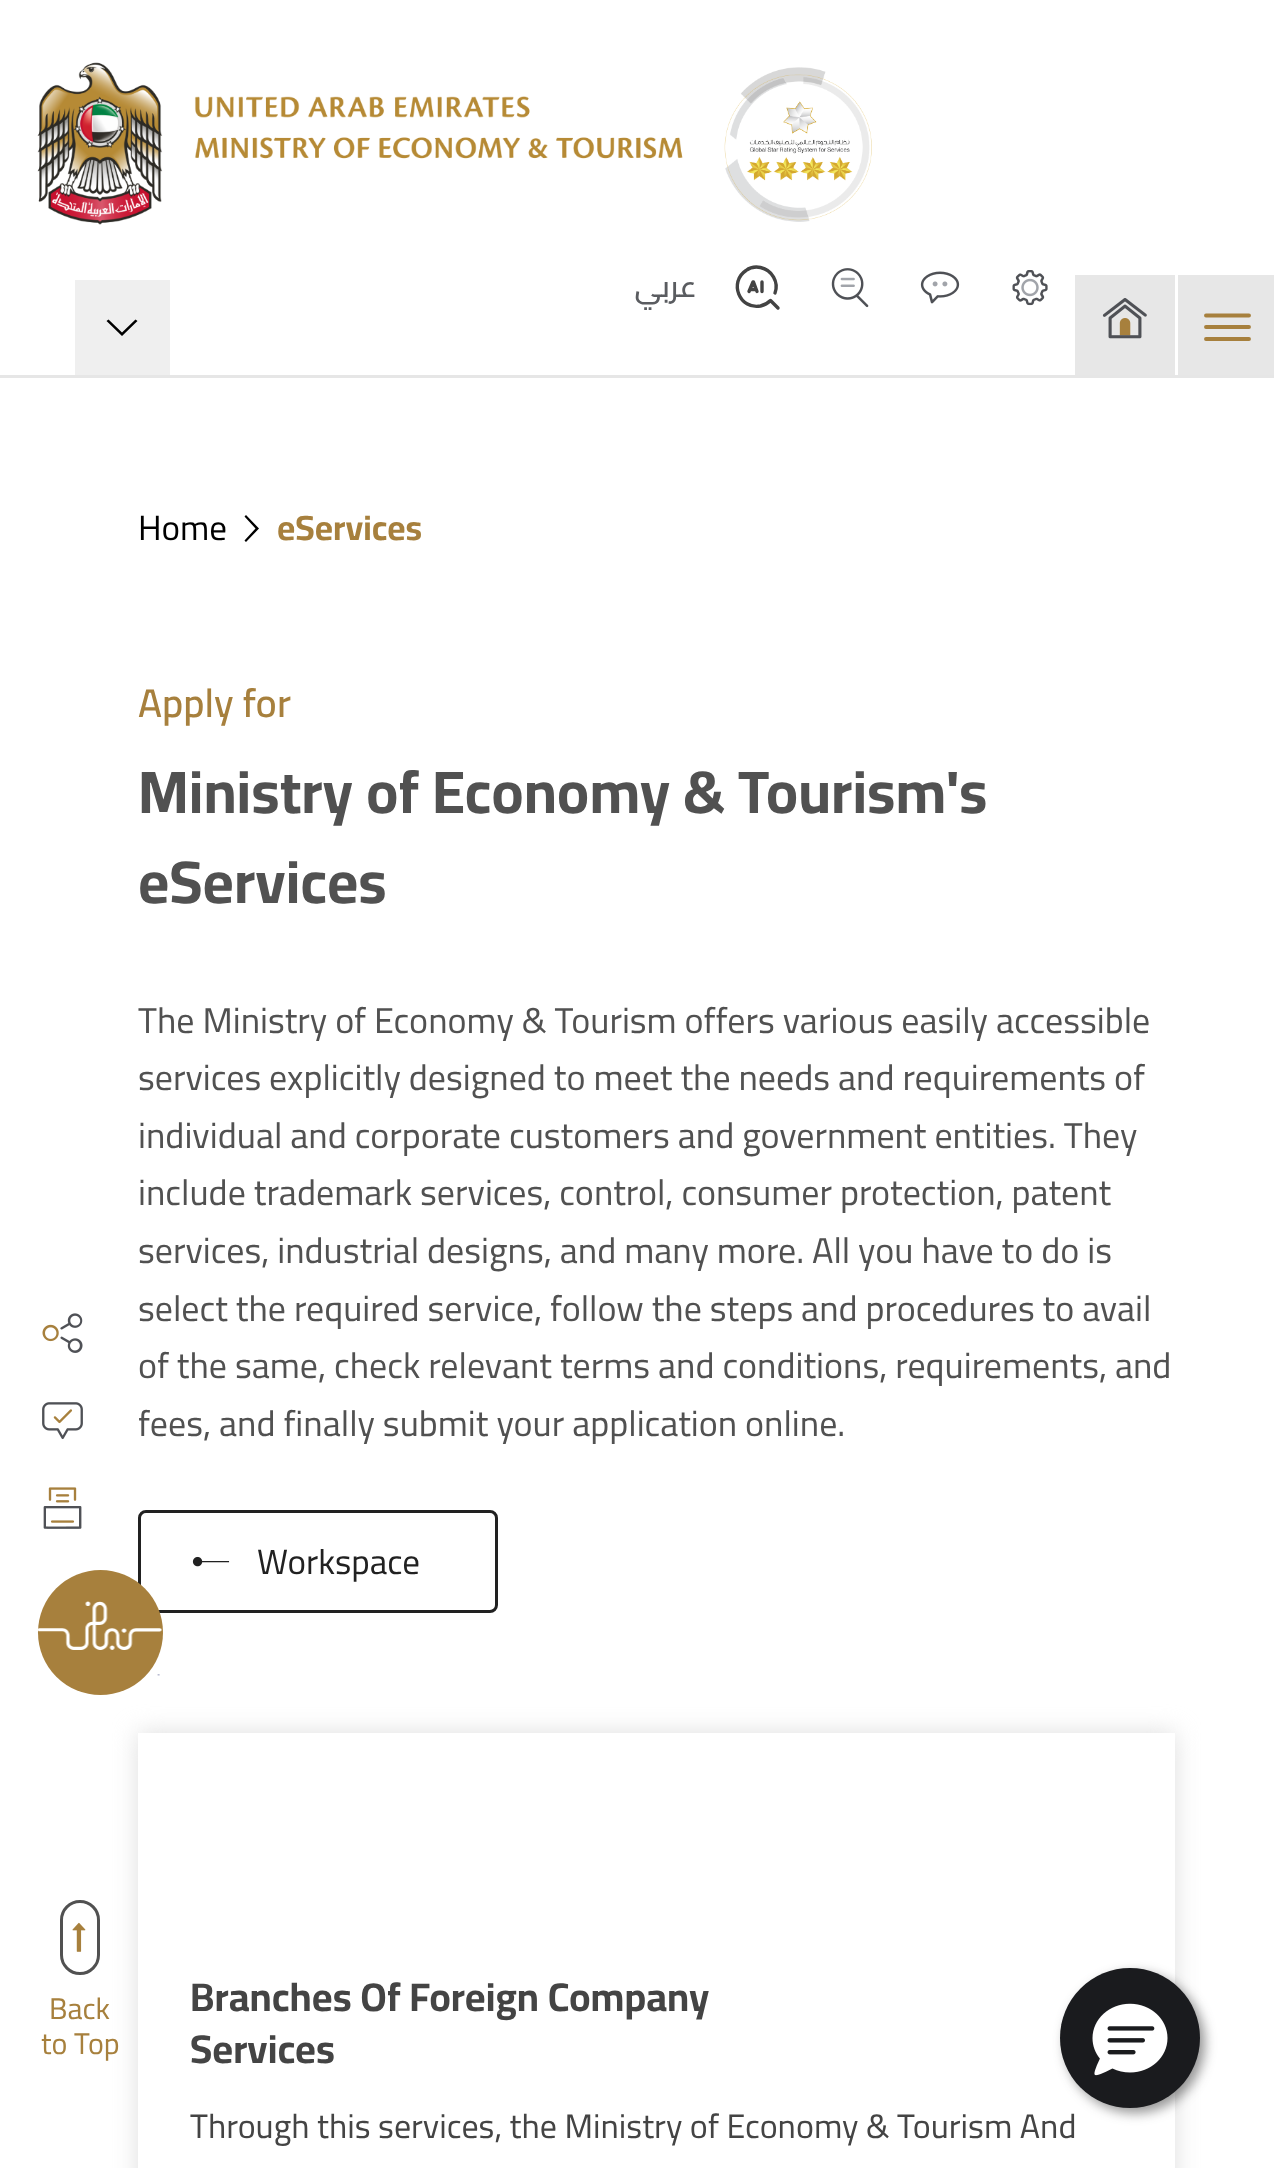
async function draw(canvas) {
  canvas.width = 1274;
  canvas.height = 2168;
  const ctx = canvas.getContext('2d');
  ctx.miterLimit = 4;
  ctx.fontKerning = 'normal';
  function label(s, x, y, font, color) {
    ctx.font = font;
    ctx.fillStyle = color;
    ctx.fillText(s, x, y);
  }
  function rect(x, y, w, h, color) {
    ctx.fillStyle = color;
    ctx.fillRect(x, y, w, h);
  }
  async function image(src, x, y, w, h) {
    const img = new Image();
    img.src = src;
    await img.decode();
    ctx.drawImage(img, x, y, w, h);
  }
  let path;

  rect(0, 0, 1274, 2168, '#fff');
  rect(0, 375, 1274, 3, '#e6e6e6');
  rect(1075, 275, 100, 100, '#e7e7e7');
  await image('assets/img2.png', 1119, 318, 12, 18);
  await image('assets/img1.png', 1102, 298, 45, 41);
  rect(1178, 275, 96, 100, '#e7e7e7');
  path = new Path2D('M1249 315.5H1206M1206 327H1249M1206 339H1249');
  ctx.strokeStyle = '#a7803d';
  ctx.lineWidth = 3.9;
  ctx.lineCap = 'round';
  ctx.stroke(path);
  await image('assets/img3.png', 37, 62, 646, 163);
  await image('assets/img4.png', 724, 67, 148, 155);
  rect(75, 280, 95, 95, '#efefef');
  ctx.fillStyle = '#000';
  path = new Path2D('M135.5 319.5L122 332.5L108.5 319.5L106.5 321L122 336L137.5 321Z');
  ctx.fill(path);
  ctx.direction = 'rtl';
  label('عربي', 697, 297, '600 30px Cairo', '#5a5c60');
  path = new Path2D('M749 291.5L753 282H753.5L757 291.5M750.5 289.5H756M762 282V291.5M775 293C779 282 772 270 760.5 267.5C755.5 266.5 750 267.5 746 270.5C728.5 282 739.5 310 760.5 306C764.5 305 768 303 770.5 300.5L778 308');
  ctx.strokeStyle = '#434343';
  ctx.lineWidth = 3.4;
  ctx.lineJoin = 'round';
  ctx.stroke(path);
  await image('assets/img6.png', 840, 277, 15, 10);
  await image('assets/img5.png', 831, 268, 38, 40);
  await image('assets/img8.png', 932, 281, 16, 6);
  await image('assets/img7.png', 920, 271, 40, 33);
  await image('assets/img10.png', 1021, 278, 18, 19);
  await image('assets/img9.png', 1012, 270, 36, 36);
  ctx.direction = 'ltr';
  label('Home', 138, 540, '35px Cairo', '#000');
  path = new Path2D('M244.5 516.5L255.5 528.5L244.5 540.5L246 542L259 528.5L246 515Z');
  ctx.fill(path);
  label('eServices', 277, 540, 'bold 35px Cairo', '#a7803d');
  await image('assets/img11.png', 42, 1324, 17, 18);
  await image('assets/img12.png', 60, 1313, 23, 40);
  await image('assets/img14.png', 53, 1409, 20, 15);
  await image('assets/img13.png', 42, 1402, 41, 38);
  await image('assets/img15.png', 48, 1487, 29, 36);
  await image('assets/img16.png', 43, 1506, 39, 23);
  ctx.beginPath();
  ctx.roundRect(139.5, 1511.5, 357, 100, 6.5);
  ctx.strokeStyle = '#212121';
  ctx.lineWidth = 3;
  ctx.lineJoin = 'miter';
  ctx.stroke();
  ctx.save();
  path = new Path2D('M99 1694H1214V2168H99ZM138 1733H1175V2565H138Z');
  ctx.clip(path, 'evenodd');
  ctx.fillStyle = '#ddd';
  ctx.filter = 'blur(12.5px)';
  ctx.beginPath();
  ctx.rect(138, 1733, 1037, 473);
  ctx.fill();
  ctx.filter = 'none';
  ctx.restore();
  ctx.beginPath();
  ctx.arc(100.5, 1632.5, 62.5, 0, 2 * Math.PI);
  ctx.fill();
  await image('assets/img17.png', 38, 1601, 124, 75);
  label('Apply for', 138, 717, '600 40px Cairo', '#a7803d');
  label('Ministry of Economy & Tourism\'s', 138, 813, 'bold 60px Cairo', '#515151');
  label('eServices', 138, 903, 'bold 60px Cairo', '#515151');
  label('The Ministry of Economy & Tourism offers various easily accessible', 138, 1033, '36px Cairo', '#515151');
  label('services explicitly designed to meet the needs and requirements of', 138, 1090, '36px Cairo', '#515151');
  label('individual and corporate customers and government entities. They', 138, 1148, '36px Cairo', '#515151');
  label('include trademark services, control, consumer protection, patent', 138, 1205, '36px Cairo', '#515151');
  label('services, industrial designs, and many more. All you have to do is', 138, 1263, '36px Cairo', '#515151');
  label('select the required service, follow the steps and procedures to avail', 138, 1321, '36px Cairo', '#515151');
  label('of the same, check relevant terms and conditions, requirements, and', 138, 1378, '36px Cairo', '#515151');
  label('fees, and finally submit your application online.', 138, 1436, '36px Cairo', '#515151');
  await image('assets/img18.png', 192, 1556, 38, 11);
  label('Workspace', 257, 1574, '35px Cairo', '#212121');
  label('Branches Of Foreign Company', 190, 2011, 'bold 40px Cairo', '#444');
  label('Services', 190, 2063, 'bold 40px Cairo', '#444');
  label('Through this services, the Ministry of Economy & Tourism And', 190, 2138, '34px Cairo', '#444');
  ctx.beginPath();
  ctx.roundRect(61.5, 1901.5, 37, 72, 18.5);
  ctx.strokeStyle = '#515151';
  ctx.stroke();
  await image('assets/img19.png', 72, 1922, 14, 30);
  label('Back', 49, 2019, '30px Cairo', '#a7803d');
  label('to Top', 41, 2054, '30px Cairo', '#a7803d');
  ctx.fillStyle = '#2d2d2d80';
  ctx.filter = 'blur(6px)';
  ctx.beginPath();
  ctx.roundRect(1065, 1973, 140, 140, 70);
  ctx.fill();
  ctx.filter = 'none';
  ctx.fillStyle = '#1a1b1e';
  ctx.beginPath();
  ctx.arc(1130, 2038, 70, 0, 2 * Math.PI);
  ctx.fill();
  await image('assets/img20.png', 1092, 2003, 76, 73);
}

draw(document.querySelector('canvas'));
